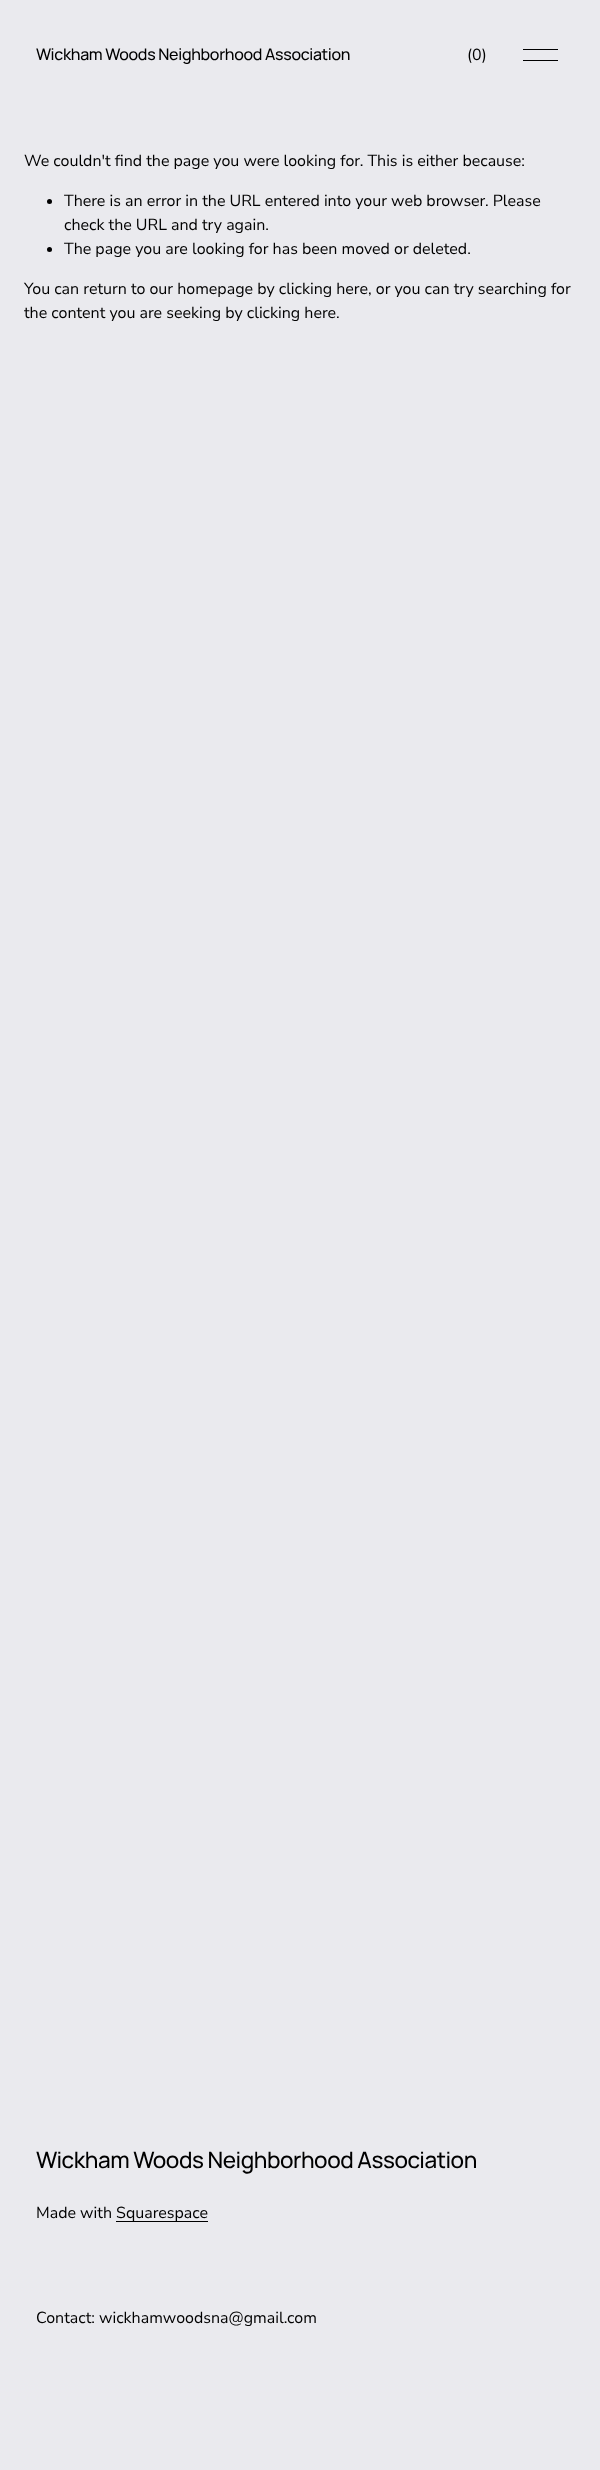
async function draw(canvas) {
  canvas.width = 600;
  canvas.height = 2470;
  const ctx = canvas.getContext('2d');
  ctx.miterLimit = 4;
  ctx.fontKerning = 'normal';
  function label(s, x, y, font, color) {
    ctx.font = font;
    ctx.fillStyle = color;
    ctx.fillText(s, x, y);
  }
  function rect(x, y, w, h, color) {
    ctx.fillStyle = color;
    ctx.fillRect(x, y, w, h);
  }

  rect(0, 0, 600, 2470, '#eaeaee');
  ctx.letterSpacing = '-0.3px';
  label('Wickham Woods Neighborhood Association', 36, 60, '500 16px Manrope', '#000');
  ctx.letterSpacing = '0px';
  label('(0)', 467, 60, '16px Nunito Sans', '#000');
  rect(523, 49, 35, 1, '#000');
  rect(523, 60, 35, 1, '#000');
  label('We couldn\'t find the page you were looking for. This is either because:', 24, 166, '16px Nunito Sans', '#000');
  ctx.beginPath();
  ctx.arc(49.5, 201.5, 2.5, 0, 2 * Math.PI);
  ctx.fill();
  label('There is an error in the URL entered into your web browser. Please', 64, 206, '16px Nunito Sans', '#000');
  label('check the URL and try again.', 64, 230, '16px Nunito Sans', '#000');
  ctx.beginPath();
  ctx.arc(49.5, 249.5, 2.5, 0, 2 * Math.PI);
  ctx.fill();
  label('The page you are looking for has been moved or deleted.', 64, 254, '16px Nunito Sans', '#000');
  label('You can return to our homepage by clicking here, or you can try searching for', 24, 294, '16px Nunito Sans', '#000');
  label('the content you are seeking by clicking here.', 24, 318, '16px Nunito Sans', '#000');
  ctx.letterSpacing = '-0.45px';
  label('Wickham Woods Neighborhood Association', 36, 2168, '500 22.5px Manrope', '#000');
  ctx.letterSpacing = '0px';
  label('Made with Squarespace', 36, 2218, '16px Nunito Sans', '#000');
  rect(116, 2221, 92, 1, '#000');
  label('Contact: wickhamwoodsna@gmail.com', 36, 2323, '16px Nunito Sans', '#000');
}

draw(document.querySelector('canvas'));
